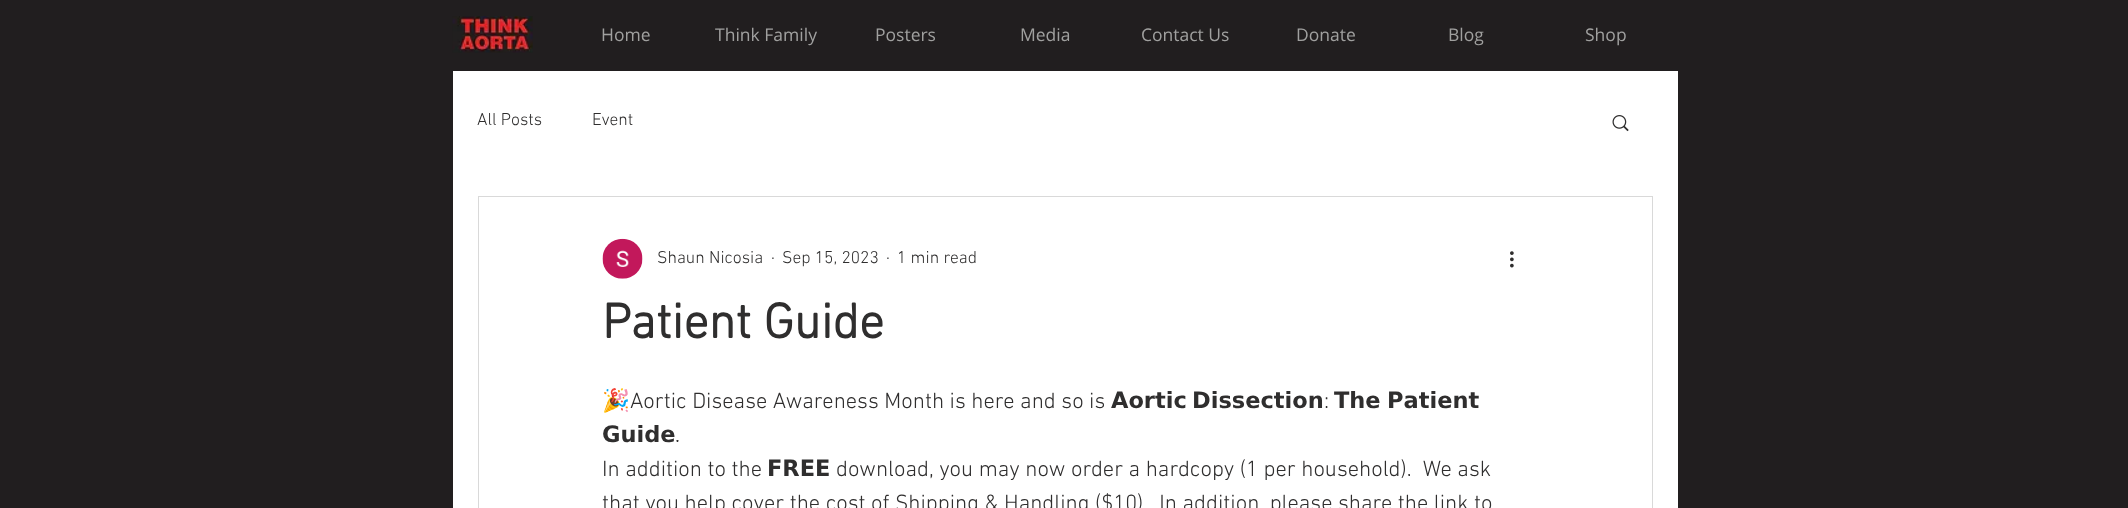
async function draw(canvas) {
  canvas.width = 2128;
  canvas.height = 508;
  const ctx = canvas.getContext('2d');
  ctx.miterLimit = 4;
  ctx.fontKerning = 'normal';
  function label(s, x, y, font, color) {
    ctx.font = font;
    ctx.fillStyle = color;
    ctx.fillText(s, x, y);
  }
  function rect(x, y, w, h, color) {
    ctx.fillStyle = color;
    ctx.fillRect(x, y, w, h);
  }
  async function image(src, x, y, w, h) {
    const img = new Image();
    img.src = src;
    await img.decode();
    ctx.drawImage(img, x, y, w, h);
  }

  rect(0, 0, 2128, 508, '#211e1f');
  await image('assets/img1.png', 452, 16, 81, 37);
  label('Home', 601, 41, '17.5px Open Sans', '#a0a09f');
  label('Think Family', 715, 41, '17.5px Open Sans', '#a0a09f');
  label('Posters', 875, 41, '17.5px Open Sans', '#a0a09f');
  label('Media', 1020, 41, '17.5px Open Sans', '#a0a09f');
  label('Contact Us', 1141, 41, '17.5px Open Sans', '#a0a09f');
  label('Donate', 1296, 41, '17.5px Open Sans', '#a0a09f');
  label('Blog', 1448, 41, '17.5px Open Sans', '#a0a09f');
  label('Shop', 1585, 41, '17.5px Open Sans', '#a0a09f');
  rect(453, 71, 1225, 437, '#fff');
  label('All Posts', 477, 125, '300 17.5px "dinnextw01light"', '#2f2e2e');
  label('Event', 592, 125, '300 17.5px "dinnextw01light"', '#2f2e2e');
  await image('assets/img2.png', 1612, 115, 17, 17);
  ctx.strokeStyle = '#d9d9d9';
  ctx.strokeRect(478.5, 196.5, 1174, 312);
  await image('assets/img3.png', 602, 238, 41, 41);
  label('Shaun Nicosia', 657, 263, '300 17.5px "dinnextw01light"', '#2f2e2e');
  label('·', 771, 263, '300 17.5px "dinnextw01light"', '#2f2e2e');
  label('Sep 15, 2023', 782, 263, '300 17.5px "dinnextw01light"', '#2f2e2e');
  label('·', 886, 263, '300 17.5px "dinnextw01light"', '#2f2e2e');
  label('1 min read', 897, 263, '300 17.5px "dinnextw01light"', '#2f2e2e');
  await image('assets/img4.png', 1510, 251, 4, 17);
  label('Patient Guide', 602, 338, 'bold 50px "dinnextw01light"', '#2f2e2e');
  label('🎉', 602, 408, '22.5px Noto Color Emoji', '#2f2e2e');
  label('Aortic Disease Awareness Month is here and so is', 630, 408, '300 22.5px "dinnextw01light"', '#2f2e2e');
  label('𝗔𝗼𝗿𝘁𝗶𝗰', 1111, 408, 'bold 22.5px DejaVu Sans', '#2f2e2e');
  label('𝗗𝗶𝘀𝘀𝗲𝗰𝘁𝗶𝗼𝗻', 1192, 408, 'bold 22.5px DejaVu Sans', '#2f2e2e');
  label(':', 1324, 408, '300 22.5px "dinnextw01light"', '#2f2e2e');
  label('𝗧𝗵𝗲', 1334, 408, 'bold 22.5px DejaVu Sans', '#2f2e2e');
  label('𝗣𝗮𝘁𝗶𝗲𝗻𝘁', 1387, 408, 'bold 22.5px DejaVu Sans', '#2f2e2e');
  label('𝗚𝘂𝗶𝗱𝗲', 602, 442, 'bold 22.5px DejaVu Sans', '#2f2e2e');
  label('.', 675, 442, '300 22.5px "dinnextw01light"', '#2f2e2e');
  label('In addition to the', 602, 476, '300 22.5px "dinnextw01light"', '#2f2e2e');
  label('𝗙𝗥𝗘𝗘', 767, 476, 'bold 22.5px DejaVu Sans', '#2f2e2e');
  label('download, you may now order a hardcopy (1 per household).  We ask', 836, 476, '300 22.5px "dinnextw01light"', '#2f2e2e');
  label('that you help cover the cost of Shipping & Handling ($10).  In addition, please share the link to', 602, 510, '300 22.5px "dinnextw01light"', '#2f2e2e');
}

draw(document.querySelector('canvas'));
